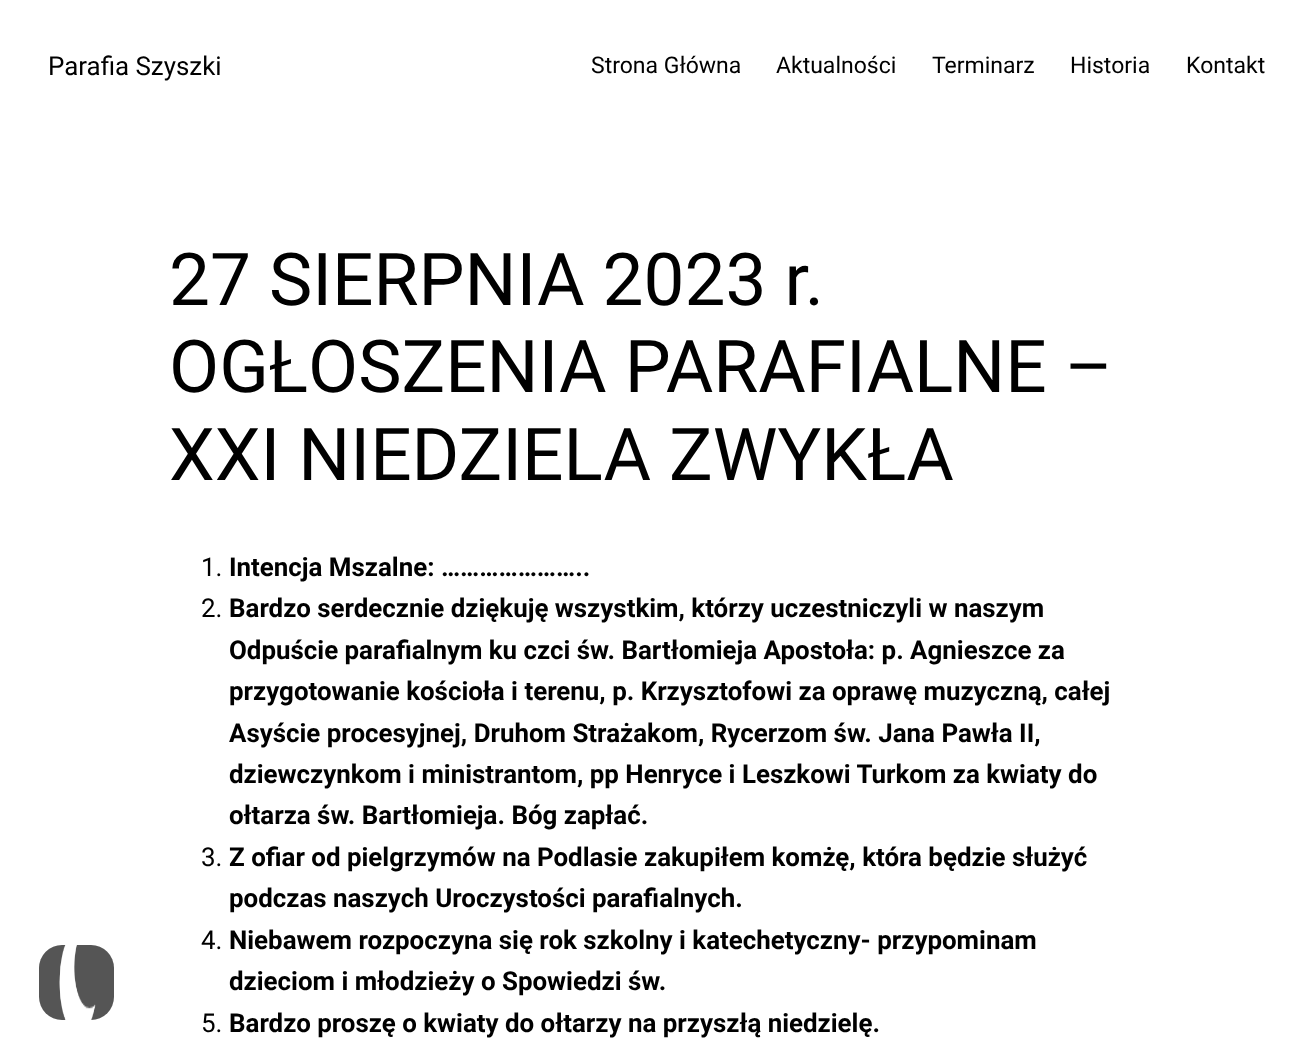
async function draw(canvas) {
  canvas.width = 1312;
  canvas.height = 1049;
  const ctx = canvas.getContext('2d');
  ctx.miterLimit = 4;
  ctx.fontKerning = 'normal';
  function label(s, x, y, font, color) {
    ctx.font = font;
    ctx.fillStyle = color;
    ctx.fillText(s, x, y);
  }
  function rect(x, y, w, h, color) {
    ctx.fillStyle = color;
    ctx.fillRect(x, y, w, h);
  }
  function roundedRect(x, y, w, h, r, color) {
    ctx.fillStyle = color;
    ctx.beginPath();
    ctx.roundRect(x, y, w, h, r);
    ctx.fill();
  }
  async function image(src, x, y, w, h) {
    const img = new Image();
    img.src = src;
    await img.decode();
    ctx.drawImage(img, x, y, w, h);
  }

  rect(0, 0, 1312, 1049, '#fff');
  label('Parafia Szyszki', 48, 75, '25.9px Roboto', '#000');
  label('Strona Główna', 591, 73, '23px Roboto', '#000');
  label('Aktualności', 776, 73, '23px Roboto', '#000');
  label('Terminarz', 932, 73, '23px Roboto', '#000');
  label('Historia', 1070, 73, '23px Roboto', '#000');
  label('Kontakt', 1186, 73, '23px Roboto', '#000');
  label('27 SIERPNIA 2023 r.', 169, 305, '72.9px Roboto', '#000');
  label('OGŁOSZENIA PARAFIALNE –', 169, 392, '72.9px Roboto', '#000');
  label('XXI NIEDZIELA ZWYKŁA', 169, 480, '72.9px Roboto', '#000');
  label('1.', 201, 576, '25.9px Roboto', '#000');
  label('Intencja Mszalne: …………………..', 229, 576, 'bold 25.9px Roboto', '#000');
  label('2.', 201, 617, '25.9px Roboto', '#000');
  label('Bardzo serdecznie dziękuję wszystkim, którzy uczestniczyli w naszym', 229, 617, 'bold 25.9px Roboto', '#000');
  label('Odpuście parafialnym ku czci św. Bartłomieja Apostoła: p. Agnieszce za', 229, 659, 'bold 25.9px Roboto', '#000');
  label('przygotowanie kościoła i terenu, p. Krzysztofowi za oprawę muzyczną, całej', 229, 700, 'bold 25.9px Roboto', '#000');
  label('Asyście procesyjnej, Druhom Strażakom, Rycerzom św. Jana Pawła II,', 229, 742, 'bold 25.9px Roboto', '#000');
  label('dziewczynkom i ministrantom, pp Henryce i Leszkowi Turkom za kwiaty do', 229, 783, 'bold 25.9px Roboto', '#000');
  label('ołtarza św. Bartłomieja. Bóg zapłać.', 229, 824, 'bold 25.9px Roboto', '#000');
  label('3.', 201, 866, '25.9px Roboto', '#000');
  label('Z ofiar od pielgrzymów na Podlasie zakupiłem komżę, która będzie służyć', 229, 866, 'bold 25.9px Roboto', '#000');
  label('podczas naszych Uroczystości parafialnych.', 229, 907, 'bold 25.9px Roboto', '#000');
  label('4.', 201, 949, '25.9px Roboto', '#000');
  label('Niebawem rozpoczyna się rok szkolny i katechetyczny- przypominam', 229, 949, 'bold 25.9px Roboto', '#000');
  label('dzieciom i młodzieży o Spowiedzi św.', 229, 990, 'bold 25.9px Roboto', '#000');
  label('5.', 201, 1032, '25.9px Roboto', '#000');
  label('Bardzo proszę o kwiaty do ołtarzy na przyszłą niedzielę.', 229, 1032, 'bold 25.9px Roboto', '#000');
  roundedRect(39, 945, 75, 75, 23, '#555');
  await image('assets/img1.png', 59, 945, 37, 75);
}

draw(document.querySelector('canvas'));
